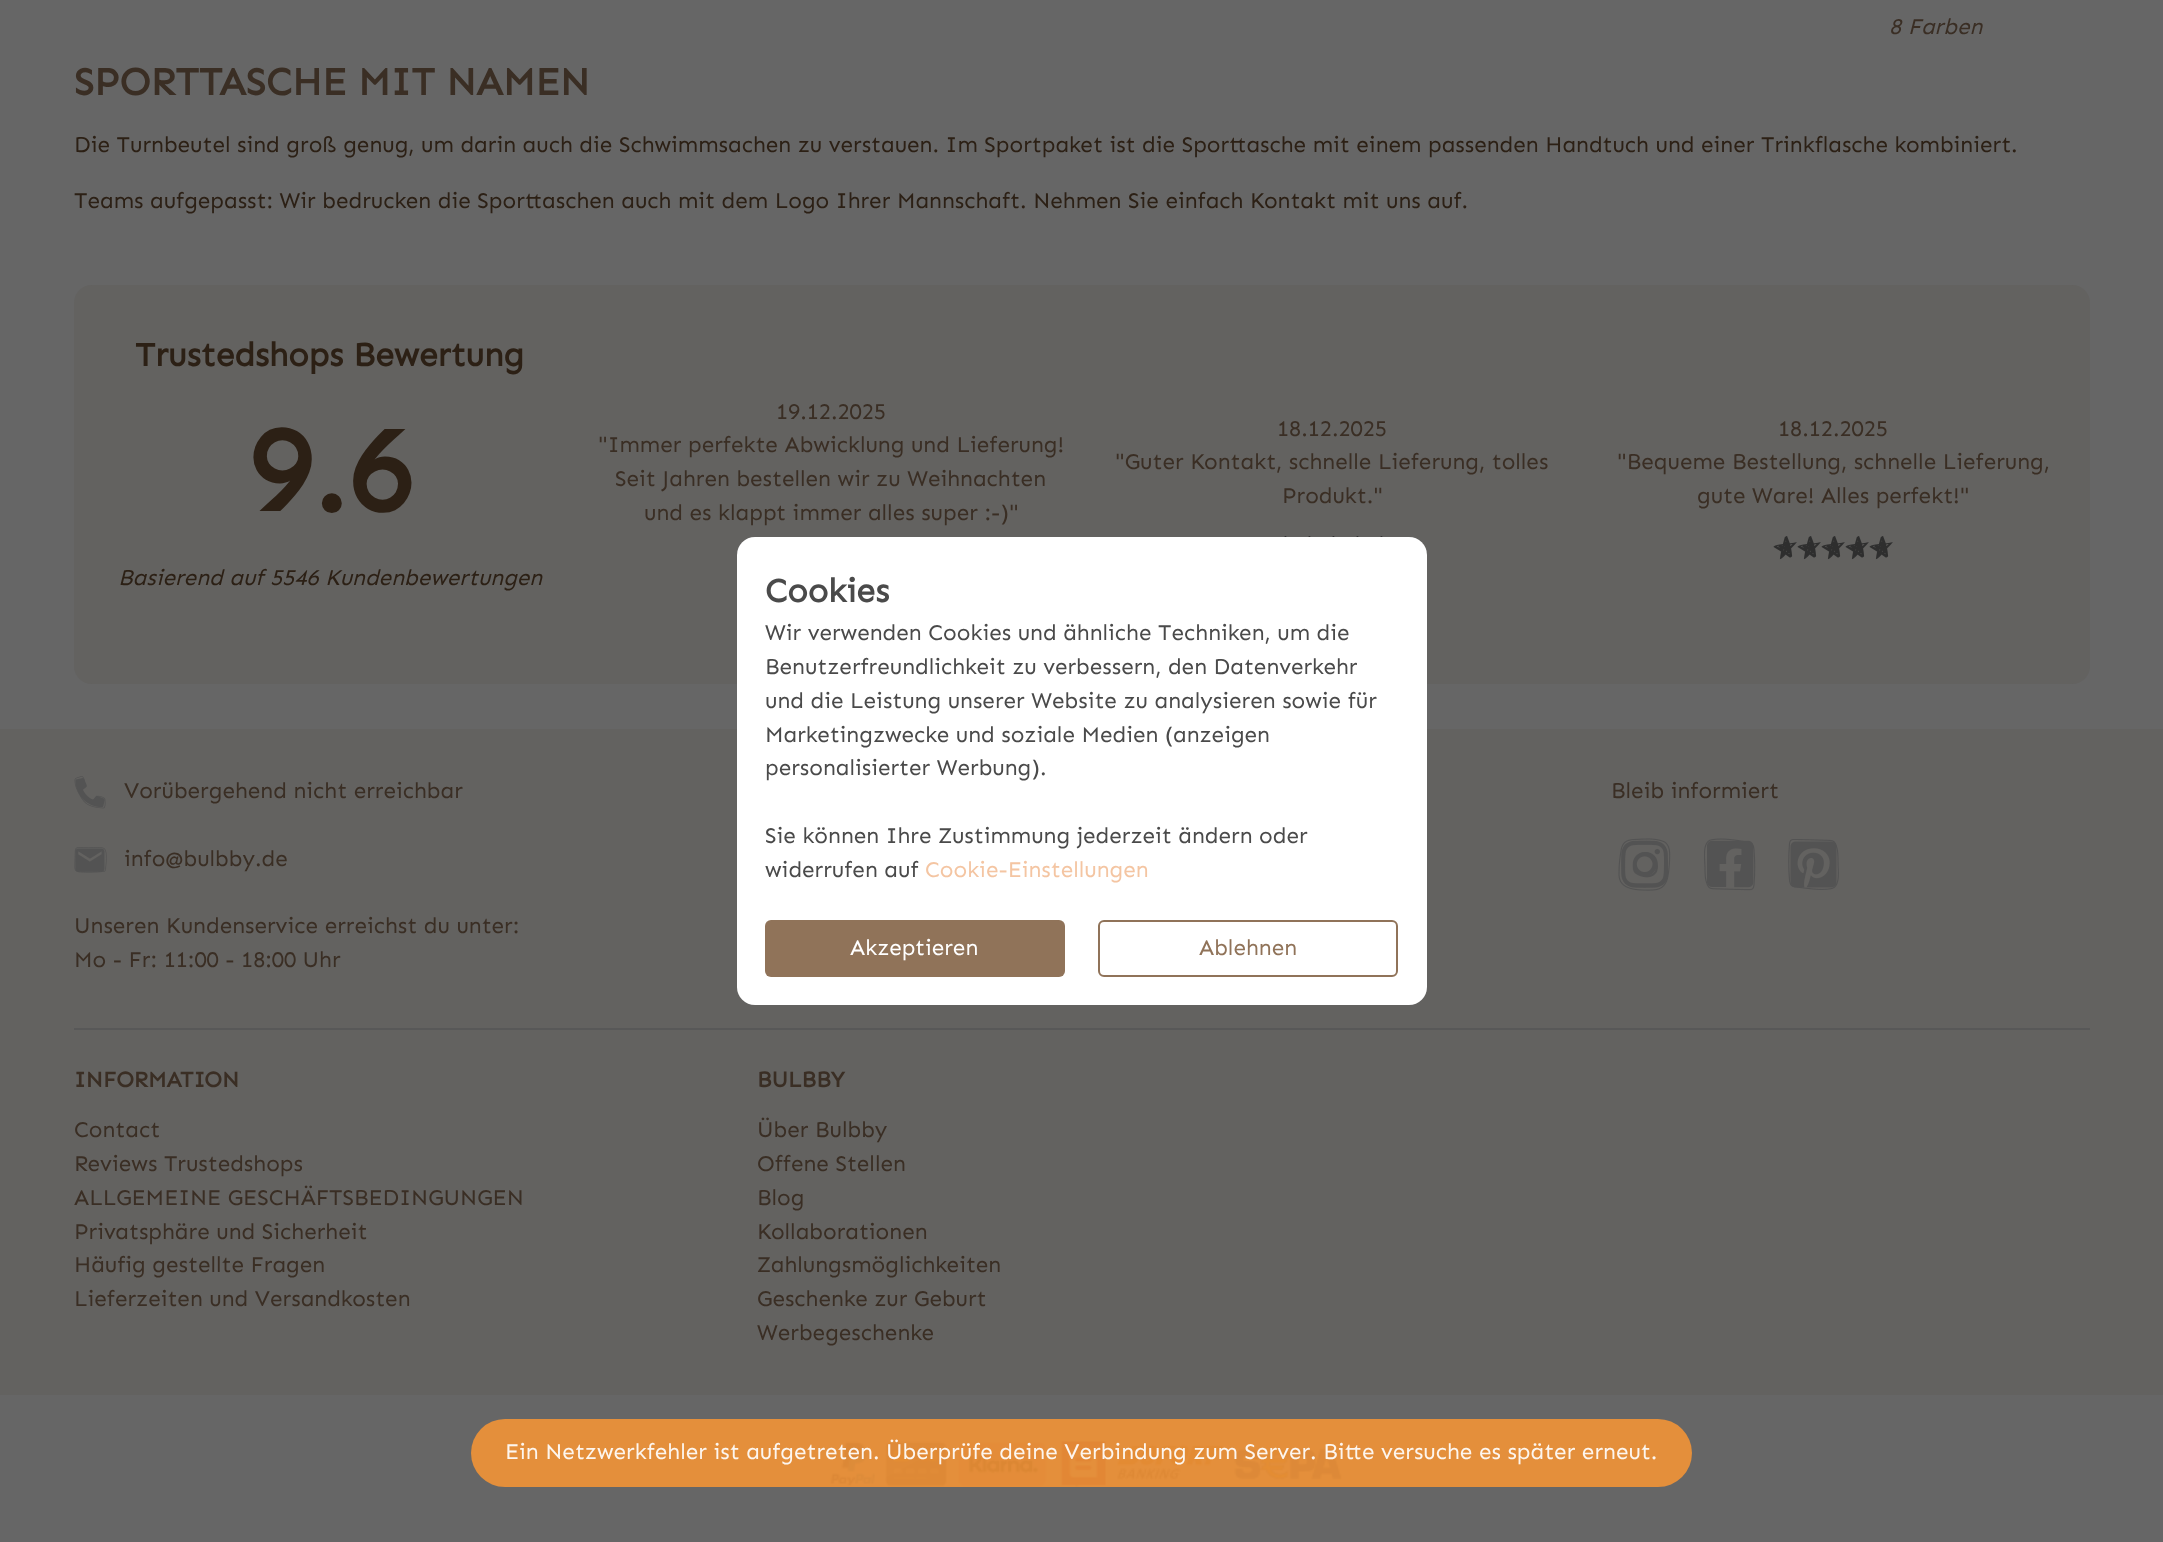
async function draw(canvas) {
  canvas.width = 2163;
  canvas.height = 1542;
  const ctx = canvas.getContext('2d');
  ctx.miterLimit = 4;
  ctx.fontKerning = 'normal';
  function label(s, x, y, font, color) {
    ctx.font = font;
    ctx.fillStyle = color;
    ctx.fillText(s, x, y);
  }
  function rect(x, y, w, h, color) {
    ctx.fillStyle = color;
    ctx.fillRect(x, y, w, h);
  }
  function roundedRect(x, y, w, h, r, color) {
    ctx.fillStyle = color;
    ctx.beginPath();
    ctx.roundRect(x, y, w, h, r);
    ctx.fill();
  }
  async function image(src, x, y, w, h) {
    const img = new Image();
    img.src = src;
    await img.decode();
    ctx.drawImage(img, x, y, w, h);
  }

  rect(0, 0, 2163, 1542, '#666');
  label('8 Farben', 1889, 34, 'italic 22.5px Sen', '#3a2e24');
  label('SPORTTASCHE MIT NAMEN', 74, 95, 'bold 39.4px Sen', '#3a2e24');
  label('Die Turnbeutel sind groß genug, um darin auch die Schwimmsachen zu verstauen. Im Sportpaket ist die Sporttasche mit einem passenden Handtuch und einer Trinkflasche kombiniert.', 74, 152, '22.5px Sen', '#2c2015');
  label('Teams aufgepasst: Wir bedrucken die Sporttaschen auch mit dem Logo Ihrer Mannschaft. Nehmen Sie einfach Kontakt mit uns auf.', 74, 208, '22.5px Sen', '#2c2015');
  roundedRect(74, 285, 2016, 399, 18, '#636260');
  label('Trustedshops Bewertung', 135, 366, 'bold 33.75px Sen', '#2c2015');
  label('9.6', 248, 511, 'bold 120px Sen', '#2c2015');
  label('Basierend auf 5546 Kundenbewertungen', 118, 585, 'italic 22.5px Sen', '#2c2015');
  label('19.12.2025', 776, 419, '22.5px Sen', '#3a2e24');
  label('"Immer perfekte Abwicklung und Lieferung!', 598, 452, '22.5px Sen', '#3a2e24');
  label('Seit Jahren bestellen wir zu Weihnachten', 615, 486, '22.5px Sen', '#3a2e24');
  label('und es klappt immer alles super :-)"', 644, 520, '22.5px Sen', '#3a2e24');
  label('18.12.2025', 1277, 436, '22.5px Sen', '#3a2e24');
  label('"Guter Kontakt, schnelle Lieferung, tolles', 1115, 469, '22.5px Sen', '#3a2e24');
  label('Produkt."', 1282, 503, '22.5px Sen', '#3a2e24');
  await image('assets/img1.png', 1284, 536, 3, 1);
  await image('assets/img1.png', 1308, 536, 3, 1);
  await image('assets/img1.png', 1332, 536, 3, 1);
  await image('assets/img1.png', 1356, 536, 3, 1);
  await image('assets/img1.png', 1380, 536, 3, 1);
  label('18.12.2025', 1778, 436, '22.5px Sen', '#3a2e24');
  label('"Bequeme Bestellung, schnelle Lieferung,', 1617, 469, '22.5px Sen', '#3a2e24');
  label('gute Ware! Alles perfekt!"', 1697, 503, '22.5px Sen', '#3a2e24');
  await image('assets/img2.png', 1773, 536, 24, 24);
  await image('assets/img2.png', 1797, 536, 24, 24);
  await image('assets/img2.png', 1821, 536, 24, 24);
  await image('assets/img2.png', 1845, 536, 24, 24);
  await image('assets/img2.png', 1869, 536, 24, 24);
  rect(0, 729, 2163, 666, '#636260');
  roundedRect(737, 537, 690, 468, 18, '#fff');
  label('Cookies', 765, 602, 'bold 33.75px Sen', '#4a4a4a');
  label('Wir verwenden Cookies und ähnliche Techniken, um die', 765, 640, '22.5px Sen', '#4a4a4a');
  label('Benutzerfreundlichkeit zu verbessern, den Datenverkehr', 765, 674, '22.5px Sen', '#4a4a4a');
  label('und die Leistung unserer Website zu analysieren sowie für', 765, 708, '22.5px Sen', '#4a4a4a');
  label('Marketingzwecke und soziale Medien (anzeigen', 765, 742, '22.5px Sen', '#4a4a4a');
  label('personalisierter Werbung).', 765, 775, '22.5px Sen', '#4a4a4a');
  label('Sie können Ihre Zustimmung jederzeit ändern oder', 765, 843, '22.5px Sen', '#4a4a4a');
  label('widerrufen auf', 765, 877, '22.5px Sen', '#4a4a4a');
  label('Cookie-Einstellungen', 925, 877, '22.5px Sen', '#f4c5a2');
  roundedRect(765, 920, 300, 57, 6, '#907359');
  label('Akzeptieren', 850, 955, '22.5px Sen', '#fff');
  ctx.beginPath();
  ctx.roundRect(1099, 921, 298, 55, 5);
  ctx.strokeStyle = '#907359';
  ctx.lineWidth = 2;
  ctx.stroke();
  label('Ablehnen', 1199, 955, '22.5px Sen', '#907359');
  await image('assets/img3.png', 74, 776, 32, 33);
  label('Vorübergehend nicht erreichbar', 124, 798, '22.5px Sen', '#3a2e24');
  await image('assets/img4.png', 74, 847, 33, 26);
  label('info@bulbby.de', 124, 866, '22.5px Sen', '#3a2e24');
  label('Unseren Kundenservice erreichst du unter:', 74, 933, '22.5px Sen', '#3a2e24');
  label('Mo - Fr: 11:00 - 18:00 Uhr', 74, 967, '22.5px Sen', '#3a2e24');
  label('Bleib informiert', 1611, 798, '22.5px Sen', '#3a2e24');
  await image('assets/img5.png', 1618, 838, 53, 53);
  await image('assets/img6.png', 1704, 838, 52, 53);
  await image('assets/img7.png', 1788, 839, 51, 51);
  rect(74, 1028, 2016, 2, '#585858');
  label('INFORMATION', 74, 1087, 'bold 22.5px Sen', '#3a2e24');
  label('Contact', 74, 1137, '22.5px Sen', '#3a2e24');
  label('Reviews Trustedshops', 74, 1171, '22.5px Sen', '#3a2e24');
  label('ALLGEMEINE GESCHÄFTSBEDINGUNGEN', 74, 1205, '22.5px Sen', '#3a2e24');
  label('Privatsphäre und Sicherheit', 74, 1239, '22.5px Sen', '#3a2e24');
  label('Häufig gestellte Fragen', 74, 1272, '22.5px Sen', '#3a2e24');
  label('Lieferzeiten und Versandkosten', 74, 1306, '22.5px Sen', '#3a2e24');
  label('BULBBY', 757, 1087, 'bold 22.5px Sen', '#3a2e24');
  label('Über Bulbby', 757, 1137, '22.5px Sen', '#3a2e24');
  label('Offene Stellen', 757, 1171, '22.5px Sen', '#3a2e24');
  label('Blog', 757, 1205, '22.5px Sen', '#3a2e24');
  label('Kollaborationen', 757, 1239, '22.5px Sen', '#3a2e24');
  label('Zahlungsmöglichkeiten', 757, 1272, '22.5px Sen', '#3a2e24');
  label('Geschenke zur Geburt', 757, 1306, '22.5px Sen', '#3a2e24');
  label('Werbegeschenke', 757, 1340, '22.5px Sen', '#3a2e24');
  await image('assets/img8.png', 830, 1441, 513, 46);
  roundedRect(471, 1419, 1221, 68, 34, '#ef9337eb');
  label('Ein Netzwerkfehler ist aufgetreten. Überprüfe deine Verbindung zum Server. Bitte versuche es später erneut.', 505, 1459, '22.5px Sen', '#fdf6ef');
}

draw(document.querySelector('canvas'));
